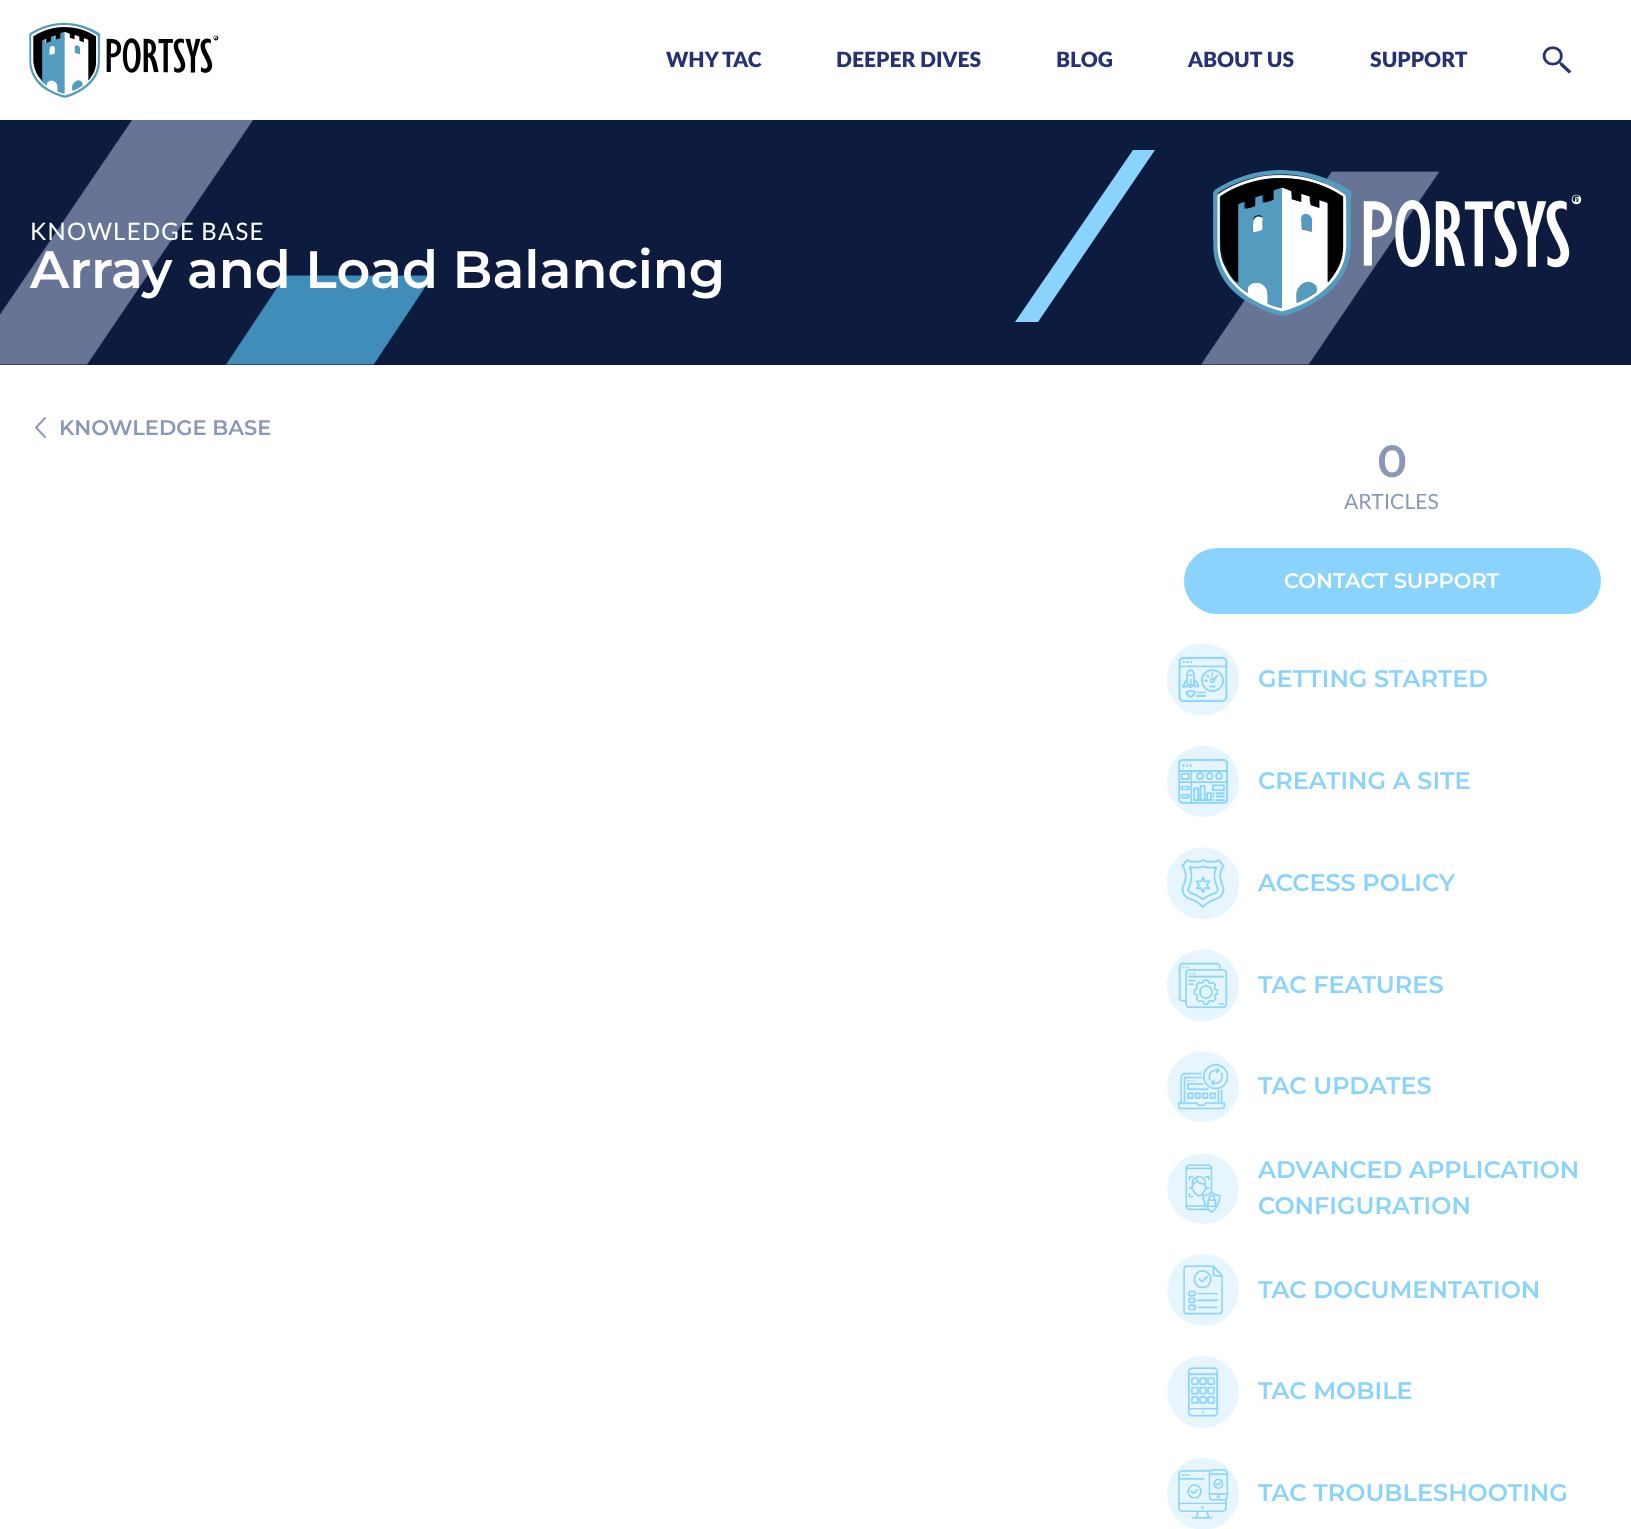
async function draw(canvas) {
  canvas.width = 1631;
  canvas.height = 1529;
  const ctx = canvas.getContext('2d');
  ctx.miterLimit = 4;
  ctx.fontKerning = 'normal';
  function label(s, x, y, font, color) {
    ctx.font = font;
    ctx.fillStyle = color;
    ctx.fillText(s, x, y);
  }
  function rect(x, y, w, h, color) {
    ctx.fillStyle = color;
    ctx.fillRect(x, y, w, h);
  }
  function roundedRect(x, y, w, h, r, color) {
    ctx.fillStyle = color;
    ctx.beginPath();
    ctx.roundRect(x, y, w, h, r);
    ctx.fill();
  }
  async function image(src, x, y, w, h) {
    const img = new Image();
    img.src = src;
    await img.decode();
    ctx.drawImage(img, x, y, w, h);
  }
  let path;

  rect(0, 0, 1631, 1529, '#fff');
  await image('assets/img1.png', 29, 22, 190, 76);
  label('WHY TAC', 666, 67, '800 21px Lato', '#273272');
  label('DEEPER DIVES', 836, 67, '800 21px Lato', '#273272');
  label('BLOG', 1056, 67, '800 21px Lato', '#273272');
  label('ABOUT US', 1188, 67, '800 21px Lato', '#273272');
  label('SUPPORT', 1370, 67, '800 21px Lato', '#273272');
  await image('assets/img2.png', 1542, 46, 30, 28);
  rect(0, 120, 1631, 245, '#0c1b3e');
  await image('assets/img3.png', 0, 120, 1440, 245);
  ctx.letterSpacing = '1.25px';
  label('KNOWLEDGE BASE', 30, 240, '24px Lato', '#fff');
  ctx.letterSpacing = '0px';
  label('Array and Load Balancing', 30, 288, '600 52.5px Montserrat', '#fff');
  ctx.fillStyle = '#89d3fc';
  path = new Path2D('M1155 150H1133L1015 322H1038Z');
  ctx.fill(path);
  await image('assets/img4.png', 1213, 170, 369, 146);
  await image('assets/img5.png', 35, 417, 11, 21);
  label('KNOWLEDGE BASE', 59, 435, '600 21px Montserrat', '#8b97b7');
  label('0', 1377, 477, '600 45px Montserrat', '#8b97b7');
  label('ARTICLES', 1344, 509, '21px Lato', '#8b97b7');
  roundedRect(1184, 548, 417, 66, 33, '#89d3fc');
  label('CONTACT SUPPORT', 1284, 588, '600 21px Montserrat', '#fff');
  await image('assets/img6.png', 1167, 643, 72, 73);
  label('GETTING STARTED', 1258, 687, '600 24px Montserrat', '#89d3fc');
  await image('assets/img7.png', 1167, 745, 72, 72);
  label('CREATING A SITE', 1258, 789, '600 24px Montserrat', '#89d3fc');
  await image('assets/img8.png', 1167, 847, 72, 73);
  label('ACCESS POLICY', 1258, 891, '600 24px Montserrat', '#89d3fc');
  await image('assets/img9.png', 1167, 949, 72, 73);
  label('TAC FEATURES', 1258, 993, '600 24px Montserrat', '#89d3fc');
  await image('assets/img10.png', 1167, 1051, 72, 71);
  label('TAC UPDATES', 1258, 1094, '600 24px Montserrat', '#89d3fc');
  await image('assets/img11.png', 1167, 1153, 72, 71);
  label('ADVANCED APPLICATION', 1258, 1178, '600 24px Montserrat', '#89d3fc');
  label('CONFIGURATION', 1258, 1214, '600 24px Montserrat', '#89d3fc');
  await image('assets/img12.png', 1167, 1254, 72, 72);
  label('TAC DOCUMENTATION', 1258, 1298, '600 24px Montserrat', '#89d3fc');
  await image('assets/img13.png', 1167, 1356, 72, 72);
  label('TAC MOBILE', 1258, 1399, '600 24px Montserrat', '#89d3fc');
  await image('assets/img14.png', 1167, 1458, 72, 71);
  label('TAC TROUBLESHOOTING', 1258, 1501, '600 24px Montserrat', '#89d3fc');
}

draw(document.querySelector('canvas'));
